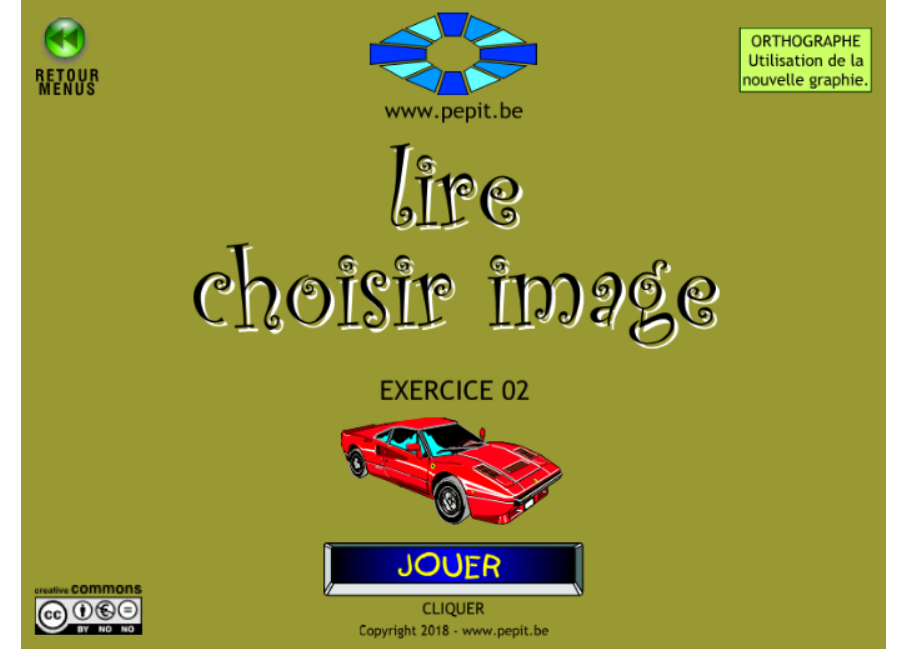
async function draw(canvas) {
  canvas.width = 907;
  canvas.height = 649;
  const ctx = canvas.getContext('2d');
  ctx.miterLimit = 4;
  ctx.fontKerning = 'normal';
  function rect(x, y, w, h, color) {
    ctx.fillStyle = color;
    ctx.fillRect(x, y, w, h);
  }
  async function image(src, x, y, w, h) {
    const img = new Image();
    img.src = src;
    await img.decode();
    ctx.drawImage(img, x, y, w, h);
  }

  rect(0, 0, 907, 649, '#fff');
  await image('assets/img1.png', 21, 0, 865, 649);
}

draw(document.querySelector('canvas'));
